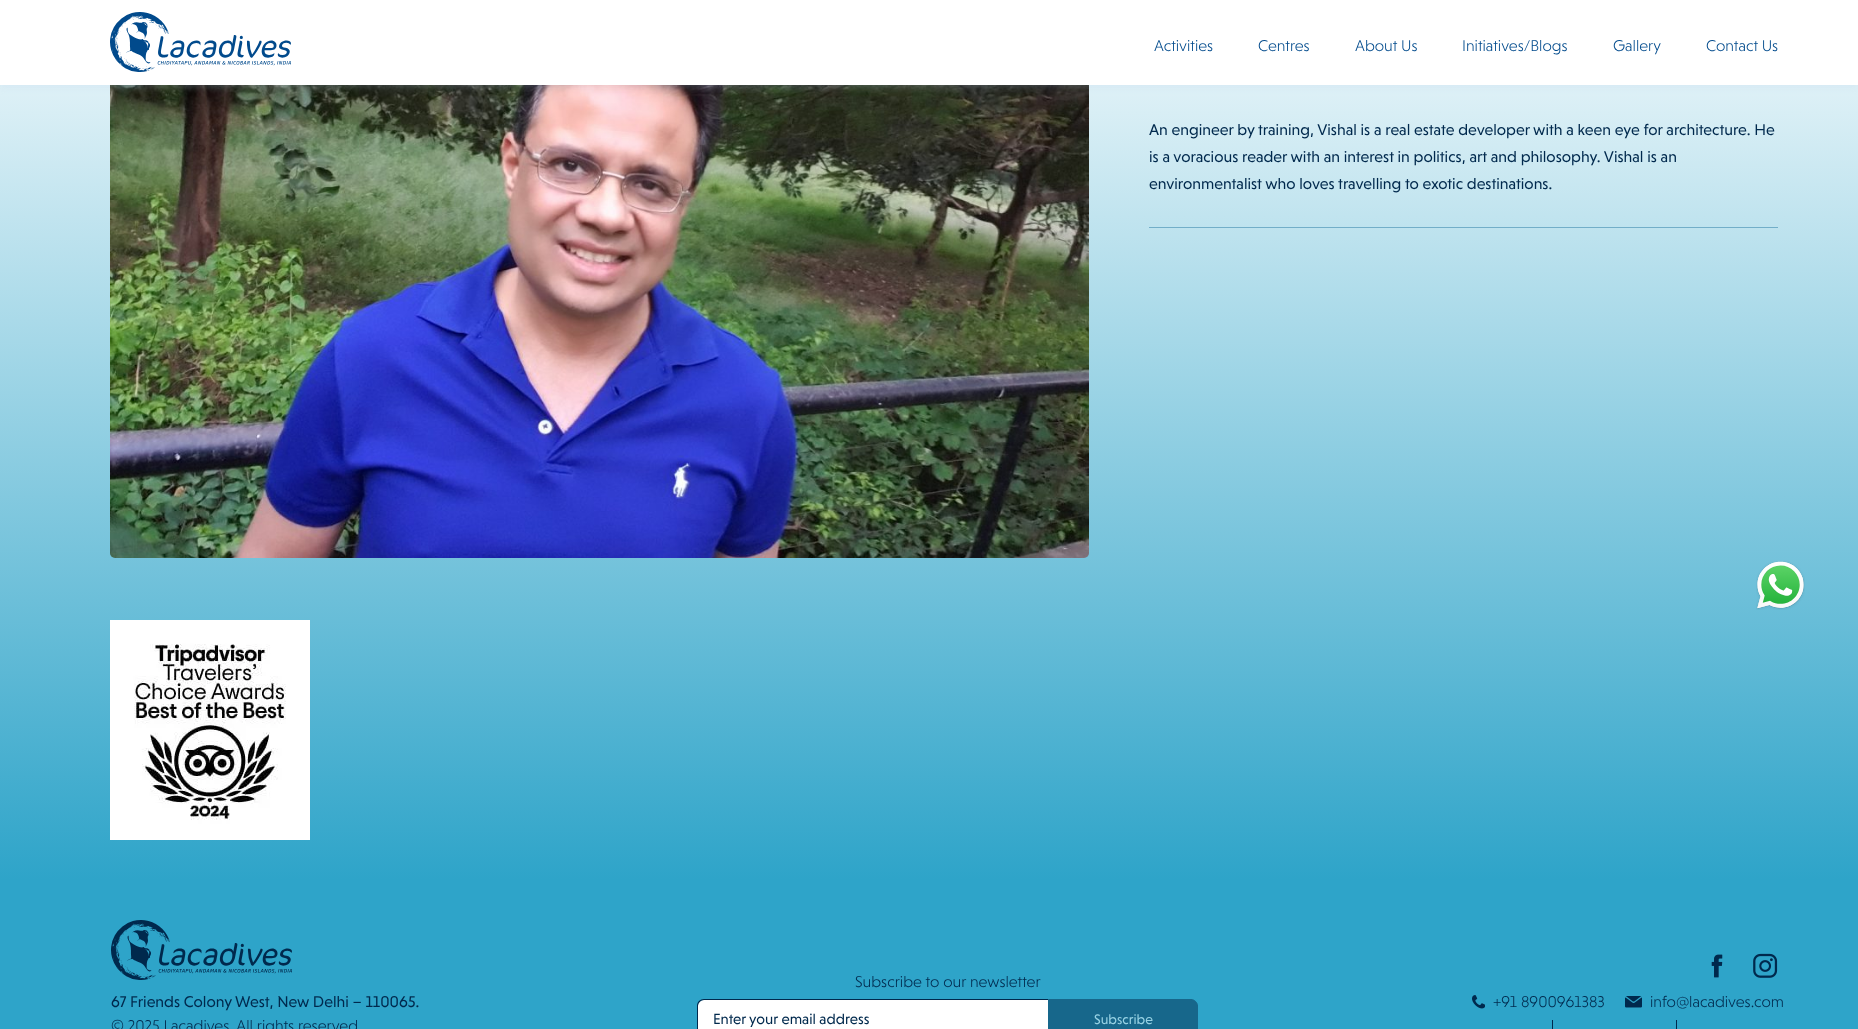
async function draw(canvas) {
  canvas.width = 1858;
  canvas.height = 1029;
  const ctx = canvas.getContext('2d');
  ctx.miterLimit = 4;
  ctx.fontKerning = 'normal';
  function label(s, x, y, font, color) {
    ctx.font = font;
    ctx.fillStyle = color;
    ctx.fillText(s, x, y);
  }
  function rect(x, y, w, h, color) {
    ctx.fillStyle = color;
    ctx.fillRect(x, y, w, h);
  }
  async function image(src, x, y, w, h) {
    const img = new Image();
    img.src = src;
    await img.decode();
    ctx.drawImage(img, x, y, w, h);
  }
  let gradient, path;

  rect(0, 0, 1858, 1029, '#fff');
  gradient = ctx.createLinearGradient(929, -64, 929, 880);
  gradient.addColorStop(0, '#fff');
  gradient.addColorStop(1, '#2ea4c9');
  ctx.fillStyle = gradient;
  ctx.fillRect(0, 85, 1858, 795);
  await image('assets/img2.png', 110, 85, 979, 473);
  ctx.fillStyle = '#b8ceec33';
  ctx.filter = 'blur(3px)';
  ctx.beginPath();
  ctx.rect(0, 3, 1858, 85);
  ctx.fill();
  ctx.filter = 'none';
  rect(0, 0, 1858, 85, '#fff');
  await image('assets/img1.png', 110, 12, 181, 60);
  label('Activities', 1154, 51, '300 16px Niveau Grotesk', '#014a8c');
  label('Centres', 1258, 51, '300 16px Niveau Grotesk', '#014a8c');
  label('About Us', 1355, 51, '300 16px Niveau Grotesk', '#014a8c');
  label('Initiatives/Blogs', 1462, 51, '300 16px Niveau Grotesk', '#014a8c');
  label('Gallery', 1613, 51, '300 16px Niveau Grotesk', '#014a8c');
  label('Contact Us', 1706, 51, '300 16px Niveau Grotesk', '#014a8c');
  label('An engineer by training, Vishal is a real estate developer with a keen eye for architecture. He', 1149, 135, '16px Niveau Grotesk', '#00294d');
  label('is a voracious reader with an interest in politics, art and philosophy. Vishal is an', 1149, 162, '16px Niveau Grotesk', '#00294d');
  label('environmentalist who loves travelling to exotic destinations.', 1149, 189, '16px Niveau Grotesk', '#00294d');
  rect(1149, 227, 629, 1, '#72aec8');
  await image('assets/img3.png', 1756, 561, 49, 49);
  await image('assets/img4.png', 110, 620, 200, 220);
  rect(0, 880, 1858, 149, '#2ea4c9');
  await image('assets/img5.png', 111, 920, 181, 60);
  label('67 Friends Colony West, New Delhi – 110065.', 111, 1007, '16px Niveau Grotesk', '#00294d');
  label('© 2025 Lacadives. All rights reserved', 111, 1031, '300 16px Niveau Grotesk', '#00294d');
  label('Subscribe to our newsletter', 855, 987, '300 16px Niveau Grotesk', '#00294d');
  ctx.fillStyle = '#fff';
  path = new Path2D('M704 1000H1048V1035H704C700.5 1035 698 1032.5 698 1029V1006C698 1002.5 700.5 1000 704 1000Z');
  ctx.fill(path);
  ctx.fillStyle = '#00294d';
  path = new Path2D('M704 999H1048V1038H704C700 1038 697 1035 697 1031V1006C697 1002 700 999 704 999ZM704 1000H1048V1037H704C701 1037 698 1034 698 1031V1006C698 1003 701 1000 704 1000Z');
  ctx.fill(path, 'evenodd');
  label('Enter your email address', 713, 1024, '15px Niveau Grotesk', '#00294d');
  ctx.fillStyle = '#17678b';
  path = new Path2D('M1048.5 999.5H1191C1194.5 999.5 1197.5 1002.5 1197.5 1006V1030C1197.5 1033.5 1194.5 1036.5 1191 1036.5H1048.5Z');
  ctx.fill(path);
  ctx.strokeStyle = '#17678b';
  ctx.stroke(path);
  label('Subscribe', 1094, 1024, '14px Niveau Grotesk', '#97d2e4');
  await image('assets/img6.png', 1711, 954, 12, 24);
  await image('assets/img7.png', 1753, 953, 25, 25);
  await image('assets/img8.png', 1472, 995, 13, 14);
  label('+91 8900961383', 1493, 1007, '300 16px Niveau Grotesk', '#00294d');
  await image('assets/img9.png', 1625, 996, 17, 12);
  label('info@lacadives.com', 1650, 1007, '300 16px Niveau Grotesk', '#00294d');
  rect(1552, 1020, 1, 9, '#00294d');
  rect(1676, 1020, 1, 9, '#00294d');
}

draw(document.querySelector('canvas'));
